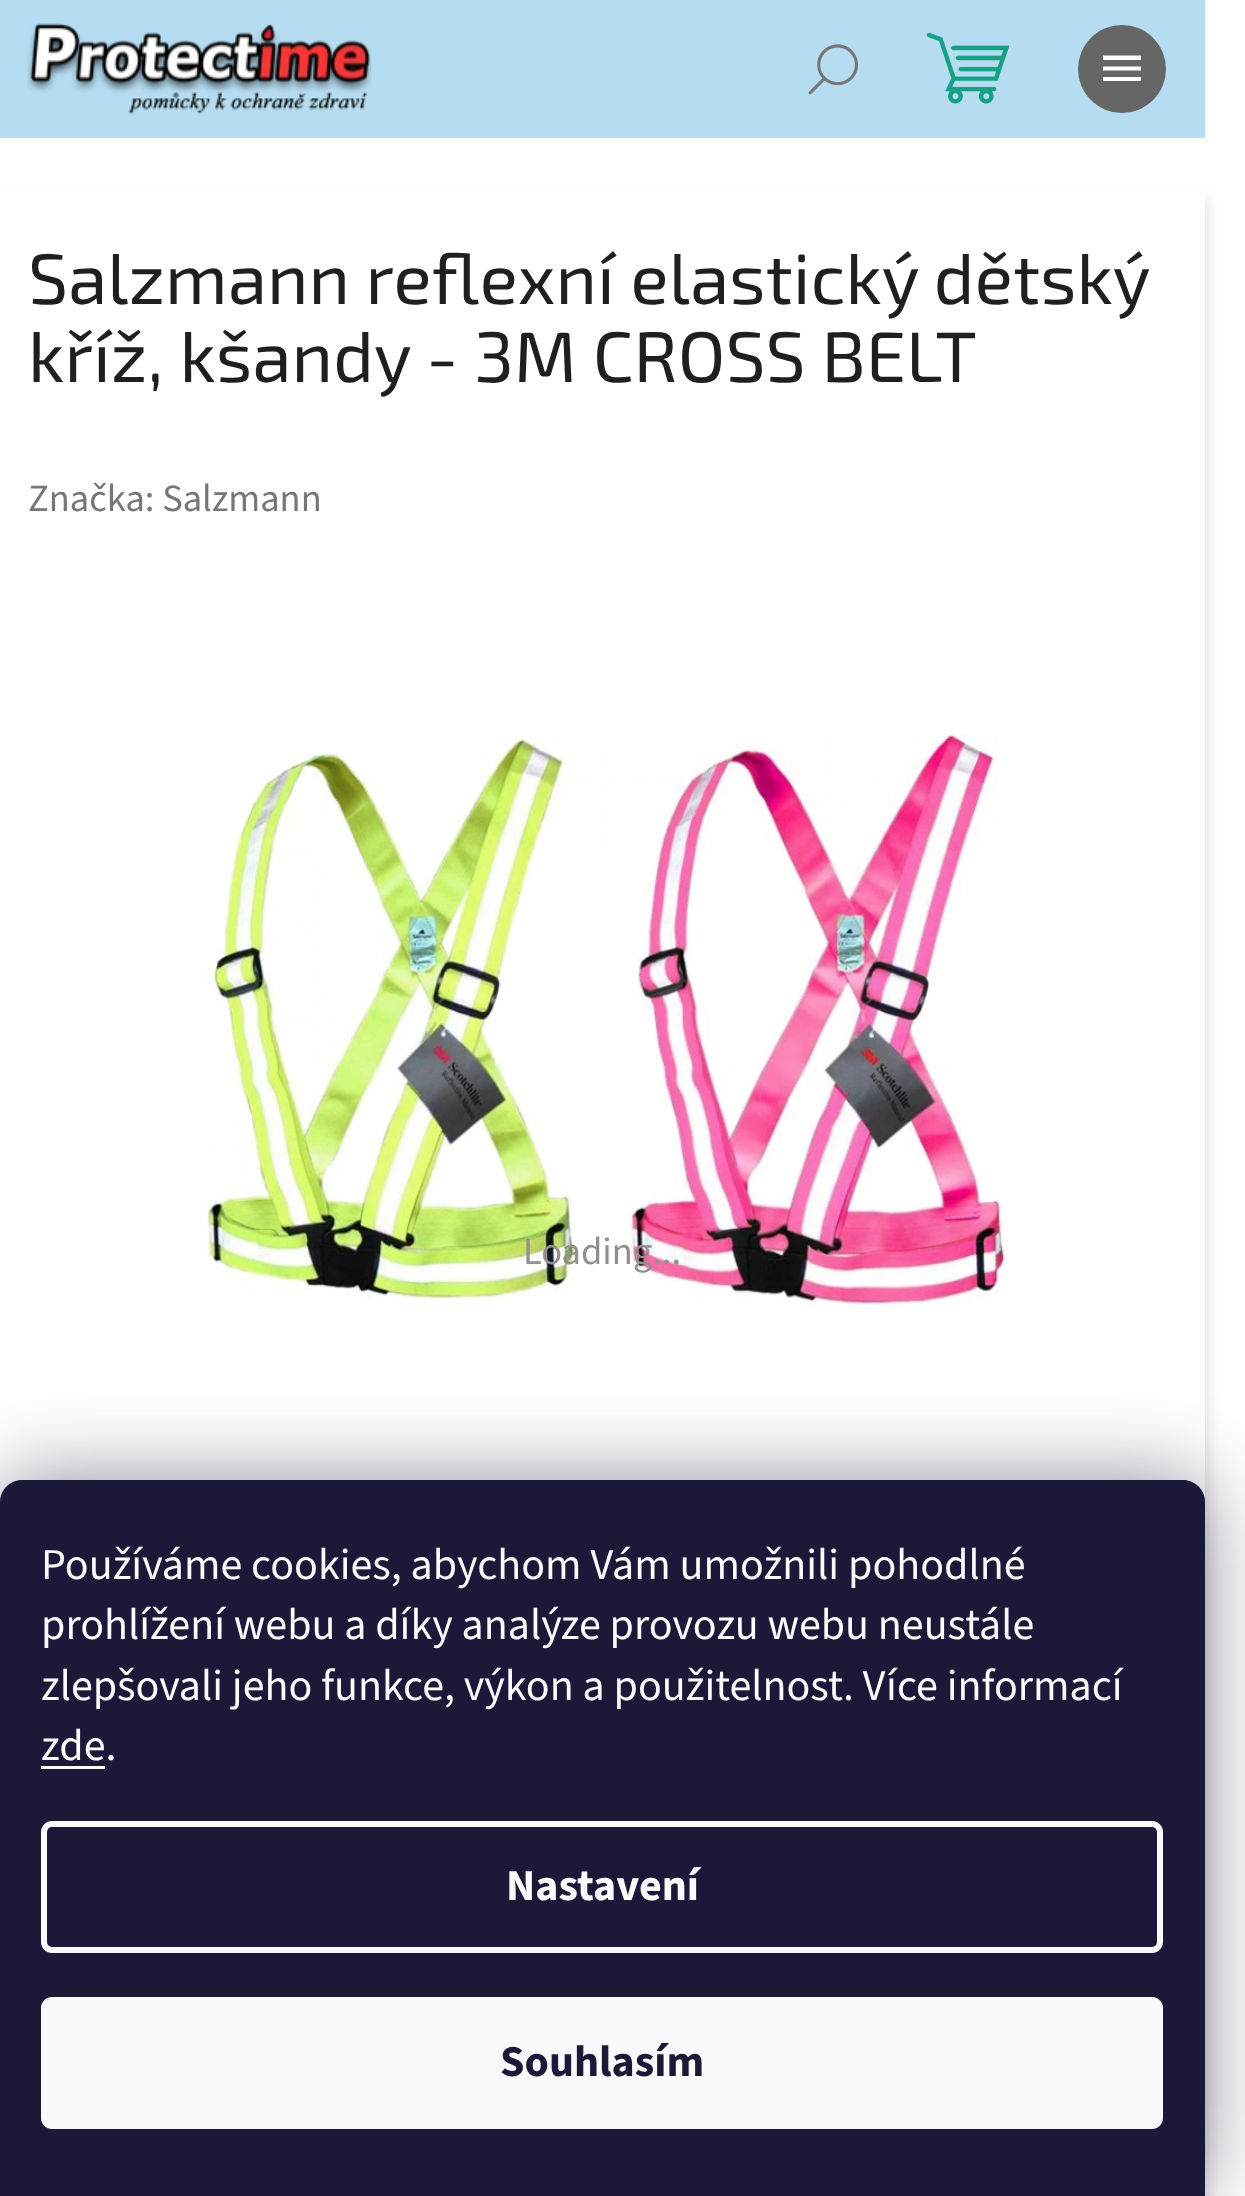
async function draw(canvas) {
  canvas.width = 1245;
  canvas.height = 2196;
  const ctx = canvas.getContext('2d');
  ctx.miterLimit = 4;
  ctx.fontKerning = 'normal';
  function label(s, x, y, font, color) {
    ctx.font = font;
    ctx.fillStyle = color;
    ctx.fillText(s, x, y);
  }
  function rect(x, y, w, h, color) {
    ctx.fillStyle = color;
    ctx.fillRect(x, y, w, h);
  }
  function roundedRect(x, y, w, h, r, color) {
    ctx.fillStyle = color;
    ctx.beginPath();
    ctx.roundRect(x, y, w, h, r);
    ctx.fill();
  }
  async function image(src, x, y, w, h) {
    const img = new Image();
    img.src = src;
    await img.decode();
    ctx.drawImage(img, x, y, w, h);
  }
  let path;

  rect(0, 0, 1245, 2196, '#fff');
  rect(0, 0, 1205, 138, '#b6dcf1');
  await image('assets/img1.png', 808, 44, 50, 51);
  ctx.fillStyle = '#666';
  ctx.beginPath();
  ctx.arc(1122, 69, 44, 0, 2 * Math.PI);
  ctx.fill();
  ctx.fillStyle = '#fff';
  path = new Path2D('M1103 81H1141V77H1103ZM1103 70.5H1141V66.5H1103ZM1103 55.5V60H1141V55.5Z');
  ctx.fill(path);
  await image('assets/img2.png', 27, 23, 345, 92);
  await image('assets/img3.png', 926, 32, 84, 72);
  ctx.fillStyle = '#00000029';
  ctx.filter = 'blur(8px)';
  ctx.beginPath();
  ctx.rect(0, 198, 1205, 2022);
  ctx.fill();
  ctx.filter = 'none';
  rect(0, 190, 1205, 1312, '#fff');
  ctx.wordSpacing = '-0.5px';
  label('Salzmann reflexní elastický dětský', 28, 304, '71.5px "Exo 2"', '#1f1f1f');
  ctx.wordSpacing = '0px';
  label('kříž, kšandy - 3M CROSS BELT', 28, 382, '71.5px "Exo 2"', '#1f1f1f');
  label('Značka: Salzmann', 28, 511, '38.5px "Source Sans 3"', '#767676');
  await image('assets/img4.png', 206, 733, 801, 576);
  label('Loading...', 523, 1264, '38.5px "Source Sans 3"', '#948f8d');
  ctx.fillStyle = '#1b193980';
  ctx.filter = 'blur(41px)';
  ctx.beginPath();
  ctx.roundRect(0, 1480, 1205, 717, 22);
  ctx.fill();
  ctx.filter = 'none';
  ctx.fillStyle = '#1a1937';
  path = new Path2D('M22 1480H1183C1195 1480 1205 1490 1205 1502V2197H0V1502C0 1490 10 1480 22 1480Z');
  ctx.fill(path);
  label('Používáme cookies, abychom Vám umožnili pohodlné', 41, 1579, '44px "Source Sans 3"', '#f8fafb');
  label('prohlížení webu a díky analýze provozu webu neustále', 41, 1639, '44px "Source Sans 3"', '#f8fafb');
  label('zlepšovali jeho funkce, výkon a použitelnost. Více informací', 41, 1700, '44px "Source Sans 3"', '#f8fafb');
  label('zde.', 41, 1760, '44px "Source Sans 3"', '#f8fafb');
  rect(41, 1766, 64, 3, '#f8fafb');
  ctx.beginPath();
  ctx.roundRect(44, 1824, 1116, 126, 8);
  ctx.strokeStyle = '#f8fafb';
  ctx.lineWidth = 6;
  ctx.stroke();
  label('Nastavení', 506, 1900, 'bold 44px "Source Sans 3"', '#f8fafb');
  roundedRect(41, 1997, 1122, 132, 11, '#f8fafb');
  label('Souhlasím', 500, 2076, 'bold 44px "Source Sans 3"', '#1a1937');
}

draw(document.querySelector('canvas'));
